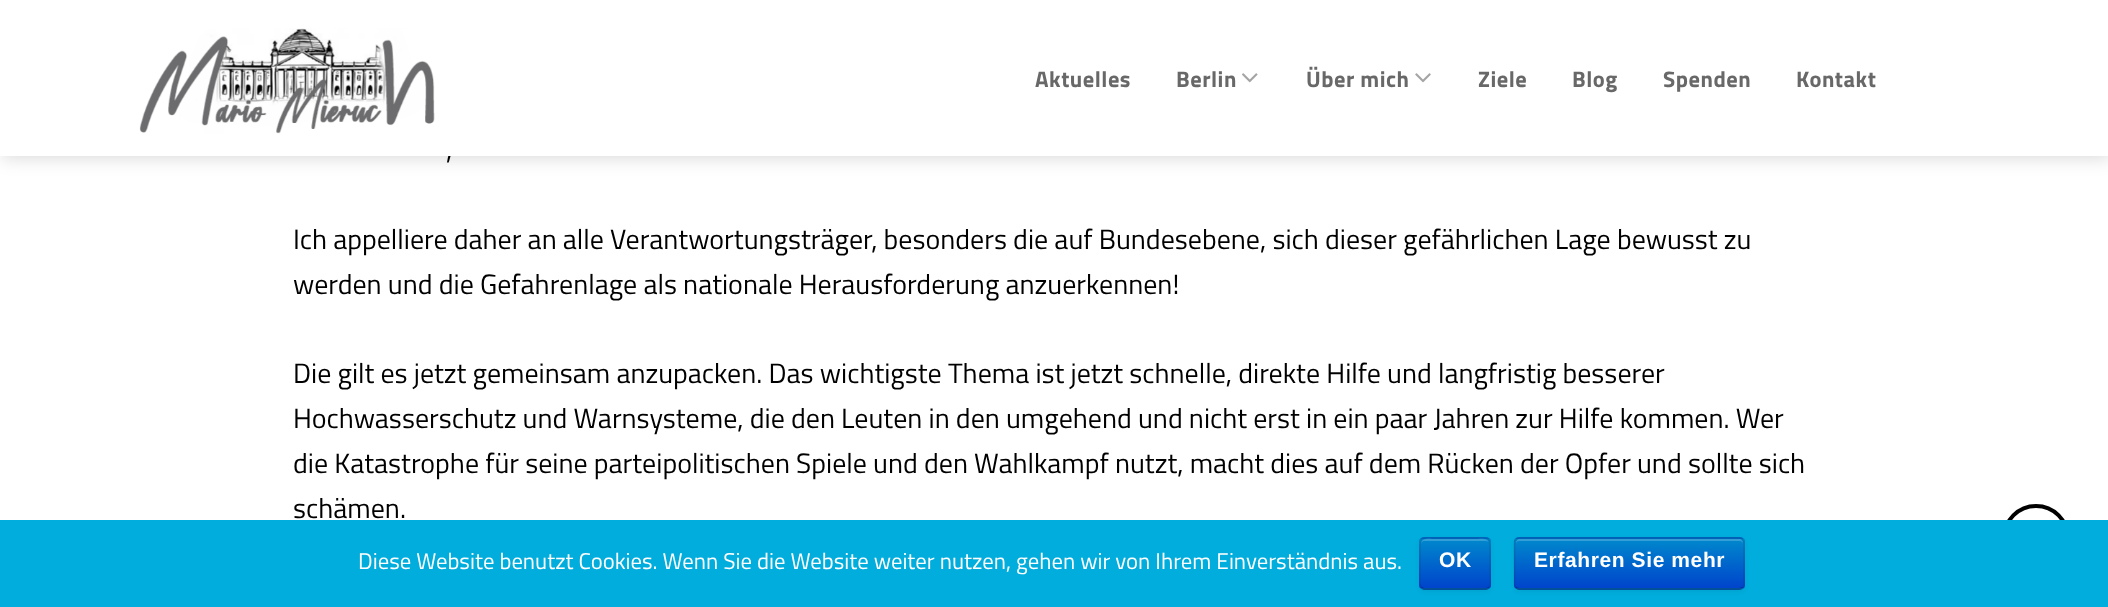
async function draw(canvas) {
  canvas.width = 2108;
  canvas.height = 607;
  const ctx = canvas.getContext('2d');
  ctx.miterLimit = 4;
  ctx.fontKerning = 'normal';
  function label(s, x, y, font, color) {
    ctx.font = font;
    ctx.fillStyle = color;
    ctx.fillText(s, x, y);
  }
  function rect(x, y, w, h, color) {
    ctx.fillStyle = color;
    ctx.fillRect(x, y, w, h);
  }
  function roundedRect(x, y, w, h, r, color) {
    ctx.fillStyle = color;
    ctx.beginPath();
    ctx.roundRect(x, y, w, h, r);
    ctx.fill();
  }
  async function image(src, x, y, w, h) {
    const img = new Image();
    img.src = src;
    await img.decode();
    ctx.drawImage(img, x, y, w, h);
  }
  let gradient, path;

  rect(0, 0, 2108, 607, '#fff');
  ctx.save();
  path = new Path2D('M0 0H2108V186H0ZM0 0H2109V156H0Z');
  ctx.clip(path, 'evenodd');
  ctx.fillStyle = '#00000026';
  ctx.filter = 'blur(9px)';
  ctx.beginPath();
  ctx.rect(2, 2, 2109, 156);
  ctx.fill();
  ctx.filter = 'none';
  ctx.restore();
  rect(2, 155, 2106, 1, '#ffffffe6');
  await image('assets/img1.png', 139, 28, 296, 106);
  ctx.letterSpacing = '0.5px';
  label('Aktuelles', 1035, 87, 'bold 22.5px Titillium Web', '#686868');
  label('Berlin', 1176, 87, 'bold 22.5px Titillium Web', '#686868');
  await image('assets/img2.png', 1242, 73, 16, 10);
  label('Über mich', 1306, 87, 'bold 22.5px Titillium Web', '#686868');
  await image('assets/img3.png', 1415, 73, 16, 10);
  label('Ziele', 1478, 87, 'bold 22.5px Titillium Web', '#686868');
  label('Blog', 1572, 87, 'bold 22.5px Titillium Web', '#686868');
  label('Spenden', 1663, 87, 'bold 22.5px Titillium Web', '#686868');
  label('Kontakt', 1796, 87, 'bold 22.5px Titillium Web', '#686868');
  ctx.letterSpacing = '0px';
  label(',', 446, 159, '28px Titillium Web', '#000');
  label('Ich appelliere daher an alle Verantwortungsträger, besonders die auf Bundesebene, sich dieser gefährlichen Lage bewusst zu', 293, 249, '28px Titillium Web', '#000');
  label('werden und die Gefahrenlage als nationale Herausforderung anzuerkennen!', 293, 294, '28px Titillium Web', '#000');
  label('Die gilt es jetzt gemeinsam anzupacken. Das wichtigste Thema ist jetzt schnelle, direkte Hilfe und langfristig besserer', 293, 383, '28px Titillium Web', '#000');
  label('Hochwasserschutz und Warnsysteme, die den Leuten in den umgehend und nicht erst in ein paar Jahren zur Hilfe kommen. Wer', 293, 428, '28px Titillium Web', '#000');
  label('die Katastrophe für seine parteipolitischen Spiele und den Wahlkampf nutzt, macht dies auf dem Rücken der Opfer und sollte sich', 293, 473, '28px Titillium Web', '#000');
  label('schämen.', 293, 518, '28px Titillium Web', '#000');
  ctx.beginPath();
  ctx.arc(2036, 538, 32, 0, 2 * Math.PI);
  ctx.strokeStyle = '#000';
  ctx.lineWidth = 4;
  ctx.stroke();
  rect(0, 520, 2108, 87, '#00addc');
  label('Diese Website benutzt Cookies. Wenn Sie die Website weiter nutzen, gehen wir von Ihrem Einverständnis aus.', 358, 569, '22.75px Titillium Web', '#fff');
  ctx.fillStyle = '#0000000d';
  ctx.filter = 'blur(2px)';
  ctx.beginPath();
  ctx.roundRect(1419, 539, 72, 53, 5);
  ctx.fill();
  ctx.filter = 'none';
  roundedRect(1419, 537, 72, 53, 5, '#006dcc');
  ctx.save();
  ctx.beginPath();
  ctx.roundRect(1419, 537, 72, 53, 5);
  ctx.clip();
  gradient = ctx.createLinearGradient(1455, 539, 1455, 588);
  gradient.addColorStop(0, '#08c');
  gradient.addColorStop(1, '#04c');
  ctx.fillStyle = gradient;
  ctx.fillRect(1419, 539, 72, 49);
  ctx.restore();
  ctx.fillStyle = '#339fd6';
  path = new Path2D('M1424 541H1486C1488 541 1489 542 1489 544C1489 537 1480 539 1475 539H1435C1430 539 1421 537 1421 544C1421 542 1423 541 1424 541Z');
  ctx.fill(path);
  path = new Path2D('M1489 587.5L1486 589H1424L1421.5 587.5');
  ctx.strokeStyle = '#00000040';
  ctx.lineWidth = 1.8;
  ctx.stroke(path);
  path = new Path2D('M1421.5 587.5C1419 585 1420 580 1420 577.5V549.5C1420 536 1420.5 538 1434.5 538H1475.5C1489.5 538 1490 536 1490 549.5V577.5C1490 580 1491 585 1489 587.5');
  ctx.strokeStyle = '#0000001a';
  ctx.stroke(path);
  ctx.letterSpacing = '0.6px';
  label('OK', 1439, 567, 'bold 21px Liberation Sans', '#fff');
  ctx.fillStyle = '#0000000d';
  ctx.filter = 'blur(2px)';
  ctx.beginPath();
  ctx.roundRect(1514, 539, 231, 53, 5);
  ctx.fill();
  ctx.filter = 'none';
  roundedRect(1514, 537, 231, 53, 5, '#006dcc');
  ctx.save();
  ctx.beginPath();
  ctx.roundRect(1514, 537, 231, 53, 5);
  ctx.clip();
  gradient = ctx.createLinearGradient(1629, 539, 1629, 588);
  gradient.addColorStop(0, '#08c');
  gradient.addColorStop(1, '#04c');
  ctx.fillStyle = gradient;
  ctx.fillRect(1514, 539, 231, 49);
  ctx.restore();
  ctx.fillStyle = '#339fd6';
  path = new Path2D('M1519 541H1740C1741 541 1743 542 1743 544C1743 541 1742 539 1739 539H1520C1517 539 1516 541 1516 544C1516 542 1517 541 1519 541Z');
  ctx.fill(path);
  path = new Path2D('M1742.5 587.5L1739.5 589H1518.5L1516 587.5');
  ctx.strokeStyle = '#00000040';
  ctx.stroke(path);
  path = new Path2D('M1516 587.5C1515 587 1514.5 585.5 1514.5 584.5V542.5C1514.5 541.5 1515 540 1516 539.5C1516.5 538.5 1518 538 1519 538H1739.5C1740.5 538 1742 538.5 1742.5 539.5C1743.5 540 1744 541.5 1744 542.5V584.5C1744 585.5 1743.5 587 1742.5 587.5');
  ctx.strokeStyle = '#0000001a';
  ctx.stroke(path);
  label('Erfahren Sie mehr', 1534, 567, 'bold 21px Liberation Sans', '#fff');
}

draw(document.querySelector('canvas'));
